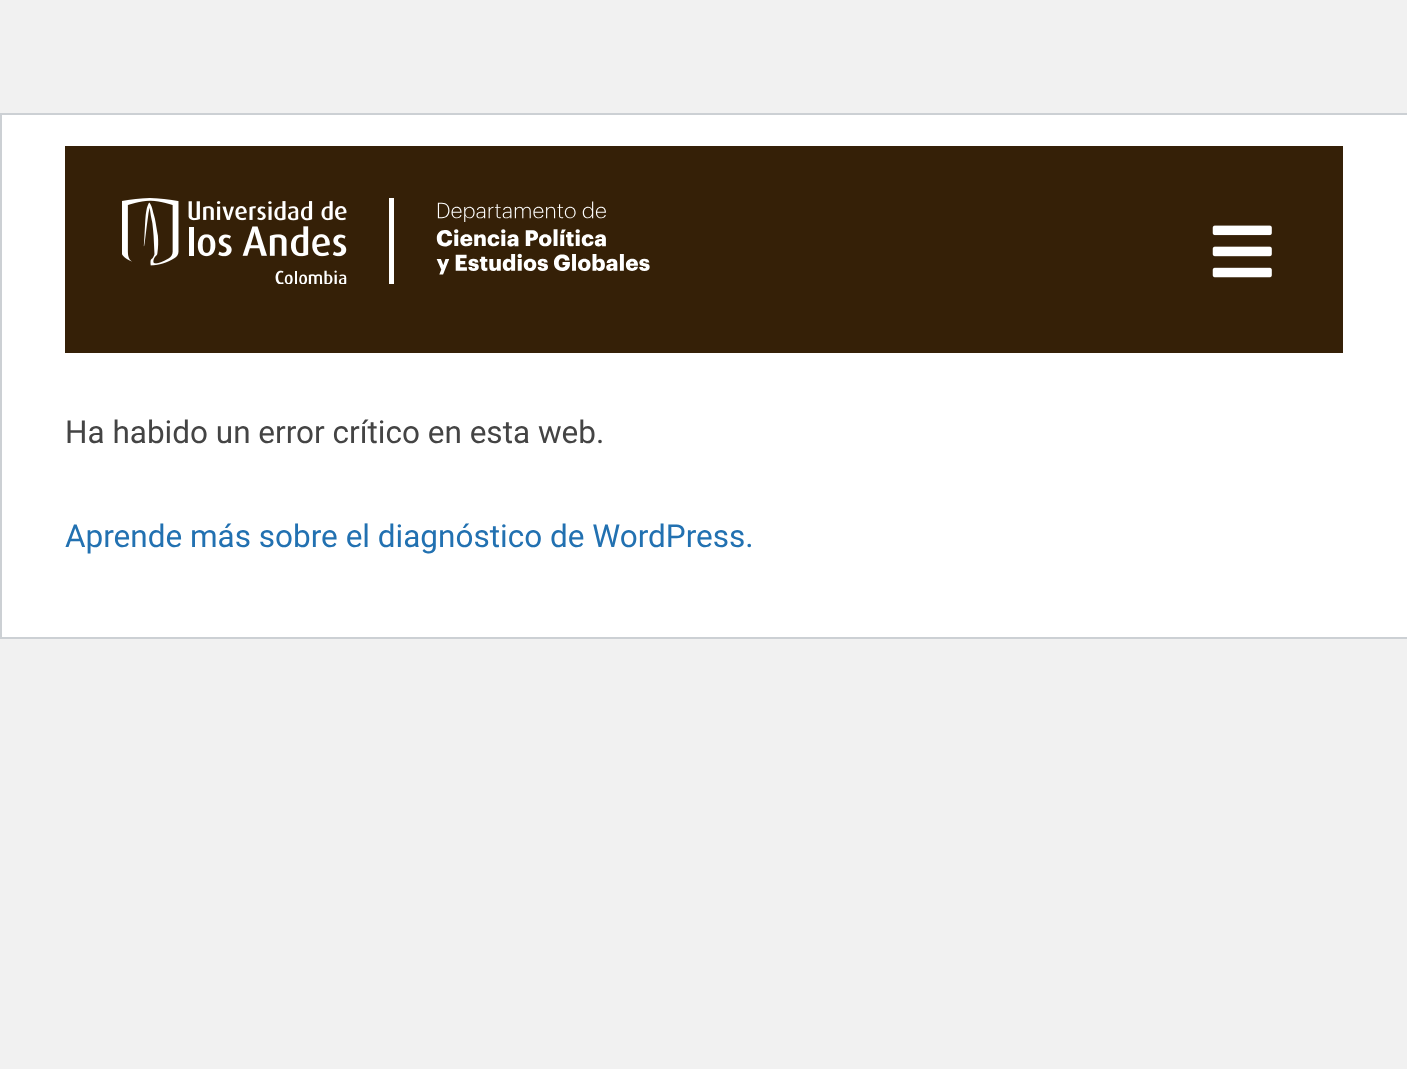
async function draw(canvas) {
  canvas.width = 1407;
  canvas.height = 1069;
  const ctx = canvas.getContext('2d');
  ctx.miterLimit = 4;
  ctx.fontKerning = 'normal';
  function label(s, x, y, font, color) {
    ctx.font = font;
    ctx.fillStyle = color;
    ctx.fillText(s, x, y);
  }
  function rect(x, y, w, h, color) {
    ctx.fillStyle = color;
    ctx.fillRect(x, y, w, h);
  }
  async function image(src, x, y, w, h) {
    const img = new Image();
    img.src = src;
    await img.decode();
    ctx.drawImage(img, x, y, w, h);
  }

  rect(0, 0, 1407, 1069, '#f1f1f1');
  ctx.fillStyle = '#fff';
  ctx.beginPath();
  ctx.rect(1, 114, 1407, 524);
  ctx.fill();
  ctx.strokeStyle = '#ccd0d4';
  ctx.lineWidth = 2;
  ctx.stroke();
  rect(65, 146, 1278, 207, '#352007');
  rect(389, 198, 5, 86, '#fff');
  await image('assets/img1.png', 122, 198, 225, 86);
  await image('assets/img2.png', 436, 201, 214, 74);
  await image('assets/img3.png', 1212, 225, 60, 53);
  label('Ha habido un error crítico en esta web.', 65, 443, '31.5px Roboto', '#444');
  label('Aprende más sobre el diagnóstico de WordPress.', 65, 547, '31.5px Roboto', '#2271b1');
}

draw(document.querySelector('canvas'));
